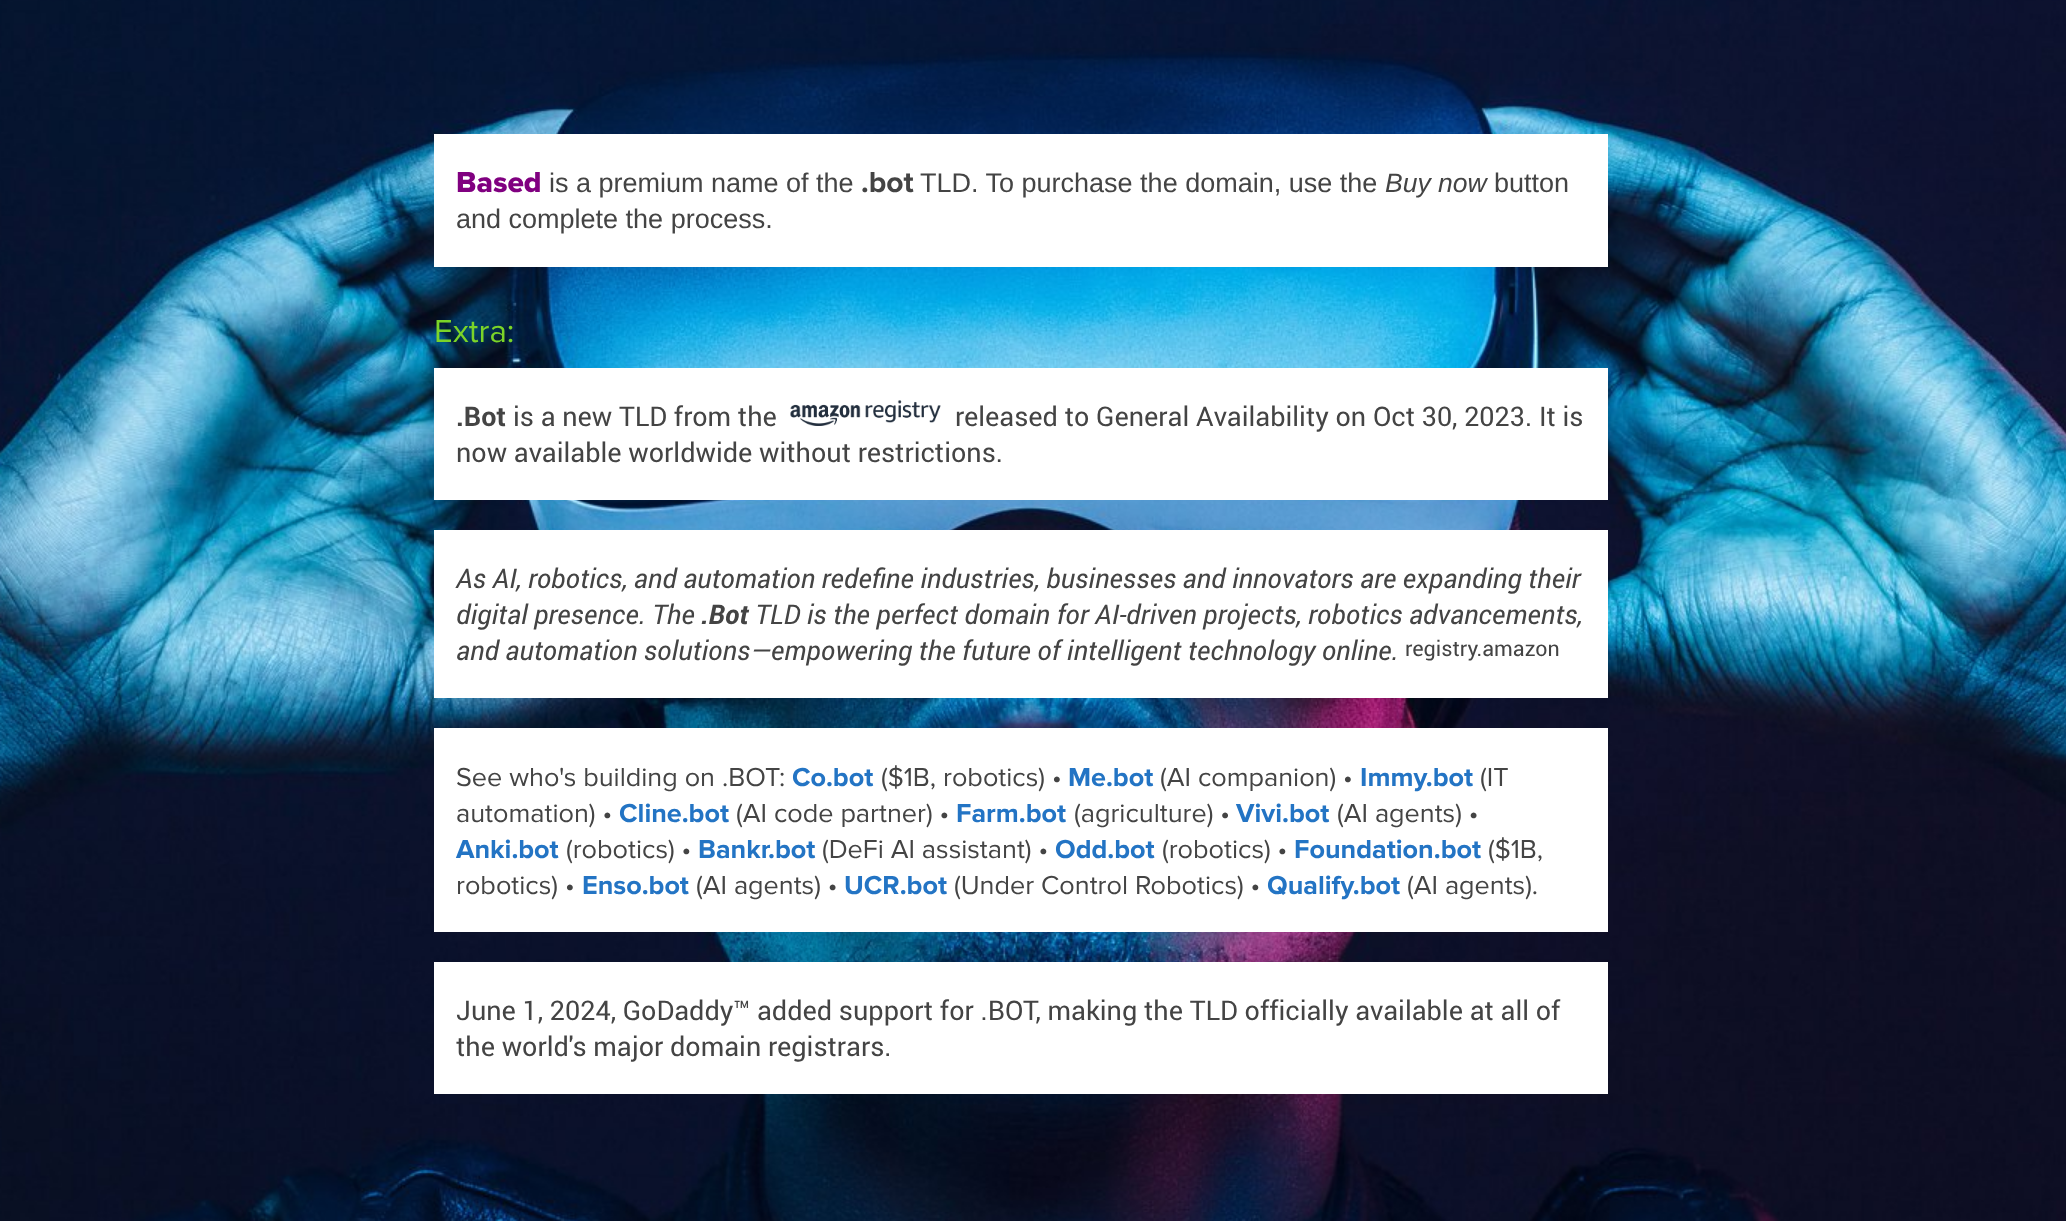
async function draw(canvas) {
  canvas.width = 2066;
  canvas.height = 1221;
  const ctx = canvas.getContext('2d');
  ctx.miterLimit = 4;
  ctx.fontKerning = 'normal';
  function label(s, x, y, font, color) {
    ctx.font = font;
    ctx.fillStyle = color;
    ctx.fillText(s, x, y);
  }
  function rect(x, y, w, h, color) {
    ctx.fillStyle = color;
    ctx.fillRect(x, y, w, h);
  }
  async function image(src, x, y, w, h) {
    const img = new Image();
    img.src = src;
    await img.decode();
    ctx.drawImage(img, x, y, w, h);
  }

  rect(0, 0, 2066, 1221, '#fff');
  await image('assets/img1.png', 0, 0, 2066, 1221);
  rect(434, 134, 1174, 133, '#fff');
  label('Based', 456, 192, '800 30px Proxima Nova', '#800080');
  label('is a premium name of the', 549, 192, '27px Liberation Sans', '#444');
  label('.bot', 861, 192, 'bold 30px Proxima Nova', '#444');
  label('TLD. To purchase the domain, use the', 920, 192, '27px Liberation Sans', '#444');
  label('Buy now', 1385, 192, 'italic 26.5px Liberation Sans', '#444');
  label('button', 1494, 192, '27px Liberation Sans', '#444');
  label('and complete the process.', 456, 228, '27px Liberation Sans', '#444');
  label('Extra:', 434, 342, '33px Proxima Nova', '#7bd428');
  rect(434, 368, 1174, 132, '#fff');
  label('.Bot', 456, 426, 'bold 27px Roboto', '#444');
  label('is a new TLD from the', 513, 426, '27px Roboto', '#444');
  await image('assets/img2.png', 790, 400, 151, 26);
  label('released to General Availability on Oct 30, 2023. It is', 955, 426, '27px Roboto', '#444');
  label('now available worldwide without restrictions.', 456, 462, '27px Roboto', '#444');
  rect(434, 530, 1174, 168, '#fff');
  label('As AI, robotics, and automation redefine industries, businesses and innovators are expanding their', 456, 588, 'italic 27px Roboto', '#444');
  label('digital presence. The', 456, 624, 'italic 27px Roboto', '#444');
  label('.Bot', 701, 624, 'italic bold 27px Roboto', '#444');
  label('TLD is the perfect domain for AI-driven projects, robotics advancements,', 755, 624, 'italic 27px Roboto', '#444');
  label('and automation solutions—empowering the future of intelligent technology online.', 456, 660, 'italic 27px Roboto', '#444');
  label('registry.amazon', 1405, 656, '21.5px Roboto', '#444');
  rect(434, 728, 1174, 204, '#fff');
  label('See who\'s building on .BOT:', 456, 786, '27px Proxima Nova', '#444');
  label('Co.bot', 792, 786, 'bold 27px Proxima Nova', '#2374c4');
  label('($1B, robotics) •', 881, 786, '27px Proxima Nova', '#444');
  label('Me.bot', 1068, 786, 'bold 27px Proxima Nova', '#2374c4');
  label('(AI companion) •', 1160, 786, '27px Proxima Nova', '#444');
  label('Immy.bot', 1360, 786, 'bold 27px Proxima Nova', '#2374c4');
  label('(IT', 1480, 786, '27px Proxima Nova', '#444');
  label('automation) •', 456, 822, '27px Proxima Nova', '#444');
  label('Cline.bot', 619, 822, 'bold 27px Proxima Nova', '#2374c4');
  label('(AI code partner) •', 736, 822, '27px Proxima Nova', '#444');
  label('Farm.bot', 956, 822, 'bold 27px Proxima Nova', '#2374c4');
  label('(agriculture) •', 1074, 822, '27px Proxima Nova', '#444');
  label('Vivi.bot', 1236, 822, 'bold 27px Proxima Nova', '#2374c4');
  label('(AI agents) •', 1337, 822, '27px Proxima Nova', '#444');
  label('Anki.bot', 456, 858, 'bold 27px Proxima Nova', '#2374c4');
  label('(robotics) •', 566, 858, '27px Proxima Nova', '#444');
  label('Bankr.bot', 698, 858, 'bold 27px Proxima Nova', '#2374c4');
  label('(DeFi AI assistant) •', 822, 858, '27px Proxima Nova', '#444');
  label('Odd.bot', 1055, 858, 'bold 27px Proxima Nova', '#2374c4');
  label('(robotics) •', 1162, 858, '27px Proxima Nova', '#444');
  label('Foundation.bot', 1294, 858, 'bold 27px Proxima Nova', '#2374c4');
  label('($1B,', 1488, 858, '27px Proxima Nova', '#444');
  label('robotics) •', 456, 894, '27px Proxima Nova', '#444');
  label('Enso.bot', 582, 894, 'bold 27px Proxima Nova', '#2374c4');
  label('(AI agents) •', 696, 894, '27px Proxima Nova', '#444');
  label('UCR.bot', 844, 894, 'bold 27px Proxima Nova', '#2374c4');
  label('(Under Control Robotics) •', 954, 894, '27px Proxima Nova', '#444');
  label('Qualify.bot', 1267, 894, 'bold 27px Proxima Nova', '#2374c4');
  label('(AI agents).', 1407, 894, '27px Proxima Nova', '#444');
  rect(434, 962, 1174, 132, '#fff');
  label('June 1, 2024, GoDaddy™ added support for .BOT, making the TLD officially available at all of', 456, 1020, '27px Roboto', '#444');
  label('the world\'s major domain registrars.', 456, 1056, '27px Roboto', '#444');
}

draw(document.querySelector('canvas'));
